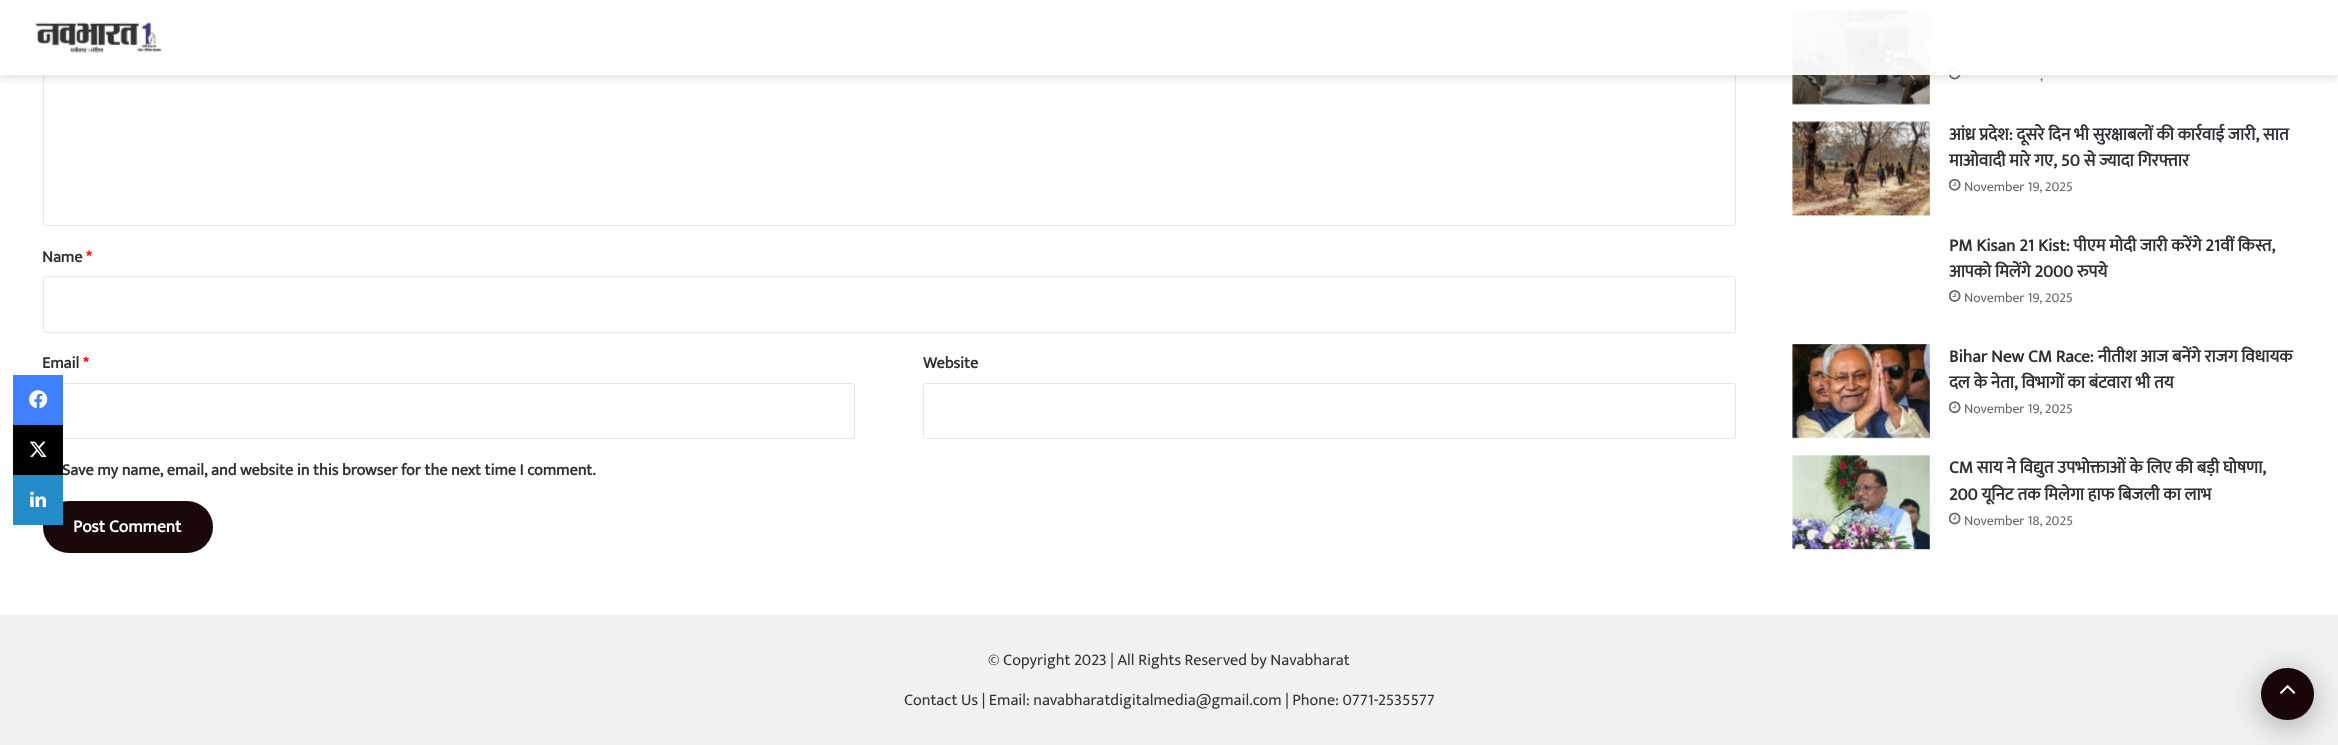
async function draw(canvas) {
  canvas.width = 2338;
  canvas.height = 745;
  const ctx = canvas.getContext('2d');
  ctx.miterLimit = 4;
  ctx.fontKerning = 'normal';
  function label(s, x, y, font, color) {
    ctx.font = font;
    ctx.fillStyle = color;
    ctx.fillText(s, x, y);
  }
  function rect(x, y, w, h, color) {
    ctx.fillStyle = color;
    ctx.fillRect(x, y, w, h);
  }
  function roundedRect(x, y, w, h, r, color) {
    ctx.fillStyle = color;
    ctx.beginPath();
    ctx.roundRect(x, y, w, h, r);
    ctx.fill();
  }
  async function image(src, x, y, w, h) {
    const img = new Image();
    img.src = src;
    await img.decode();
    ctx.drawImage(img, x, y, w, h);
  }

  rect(0, 0, 2338, 745, '#fff');
  ctx.beginPath();
  ctx.roundRect(43.5, -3.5, 1692, 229, 2);
  ctx.strokeStyle = '#e6e6e6';
  ctx.stroke();
  await image('assets/img5.png', 1792, 10, 138, 95);
  await image('assets/img6.png', 1949, 67, 12, 13);
  ctx.save();
  ctx.beginPath();
  ctx.rect(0, 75, 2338, 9);
  ctx.clip();
  ctx.fillStyle = '#63636333';
  ctx.filter = 'blur(5px)';
  ctx.beginPath();
  ctx.rect(0, 3, 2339, 75);
  ctx.fill();
  ctx.filter = 'none';
  ctx.restore();
  rect(43, 0, 1918, 75, '#fffffff2');
  await image('assets/img1.png', 35, 21, 127, 33);
  ctx.beginPath();
  ctx.roundRect(43.5, 383.5, 811, 55, 2);
  ctx.stroke();
  rect(13, 375, 50, 50, '#4080ff');
  await image('assets/img2.png', 29, 390, 19, 19);
  label('Save my name, email, and website in this browser for the next time I comment.', 62, 475, 'bold 16.25px Mukta', '#2e3136');
  rect(13, 425, 50, 50, '#000');
  await image('assets/img3.png', 29, 441, 18, 16);
  roundedRect(43, 501, 170, 52, 26, '#1b0808');
  rect(13, 475, 50, 50, '#238cc8');
  await image('assets/img4.png', 30, 491, 17, 16);
  label('Name', 42, 262, 'bold 16.25px Mukta', '#2e3136');
  label('*', 86, 262, 'bold 16.25px Mukta', '#ff0303');
  ctx.beginPath();
  ctx.roundRect(43.5, 276.5, 1692, 56, 2);
  ctx.stroke();
  label('Email', 42, 368, 'bold 16.25px Mukta', '#2e3136');
  label('*', 83, 368, 'bold 16.25px Mukta', '#ff0303');
  label('Website', 923, 368, 'bold 16.25px Mukta', '#2e3136');
  ctx.beginPath();
  ctx.roundRect(923.5, 383.5, 812, 55, 2);
  ctx.stroke();
  label('Post Comment', 73, 532, 'bold 17.5px Mukta', '#fff');
  label(',', 2040, 80, '13.75px Mukta', '#686868');
  await image('assets/img7.png', 1792, 121, 138, 95);
  label('आंध्र प्रदेश: दूसरे दिन भी सुरक्षाबलों की कार्रवाई जारी, सात', 1949, 140, 'bold 17.5px Mukta', '#2e3136');
  label('माओवादी मारे गए, 50 से ज्यादा गिरफ्तार', 1949, 166, 'bold 17.5px Mukta', '#2e3136');
  await image('assets/img8.png', 1949, 178, 12, 13);
  label('November 19, 2025', 1964, 191, '13.75px Mukta', '#686868');
  label('PM Kisan 21 Kist: पीएम मोदी जारी करेंगे 21वीं किस्त,', 1949, 251, 'bold 17.5px Mukta', '#2e3136');
  label('आपको मिलेंगे 2000 रुपये', 1949, 277, 'bold 17.5px Mukta', '#2e3136');
  await image('assets/img9.png', 1949, 290, 12, 12);
  label('November 19, 2025', 1964, 302, '13.75px Mukta', '#686868');
  await image('assets/img10.png', 1792, 344, 138, 95);
  label('Bihar New CM Race: नीतीश आज बनेंगे राजग विधायक', 1949, 362, 'bold 17.5px Mukta', '#2e3136');
  label('दल के नेता, विभागों का बंटवारा भी तय', 1949, 388, 'bold 17.5px Mukta', '#2e3136');
  await image('assets/img11.png', 1949, 401, 12, 13);
  label('November 19, 2025', 1964, 413, '13.75px Mukta', '#686868');
  await image('assets/img12.png', 1792, 455, 138, 95);
  label('CM साय ने विद्युत उपभोक्ताओं के लिए की बड़ी घोषणा,', 1949, 473, 'bold 17.5px Mukta', '#2e3136');
  label('200 यूनिट तक मिलेगा हाफ बिजली का लाभ', 1949, 500, 'bold 17.5px Mukta', '#2e3136');
  await image('assets/img6.png', 1949, 512, 12, 13);
  label('November 18, 2025', 1964, 525, '13.75px Mukta', '#686868');
  rect(0, 615, 2338, 130, '#f1f1f1');
  label('© Copyright 2023 | All Rights Reserved by Navabharat', 988, 665, '16.25px Mukta', '#353535');
  label('Contact Us | Email: navabharatdigitalmedia@gmail.com | Phone: 0771-2535577', 904, 705, '16.25px Mukta', '#353535');
  ctx.fillStyle = '#0000004d';
  ctx.filter = 'blur(15.5px)';
  ctx.beginPath();
  ctx.roundRect(2261, 674, 53, 52, 26);
  ctx.fill();
  ctx.filter = 'none';
  roundedRect(2261, 668, 53, 52, 26, '#190606');
  await image('assets/img13.png', 2280, 685, 16, 9);
}

draw(document.querySelector('canvas'));
